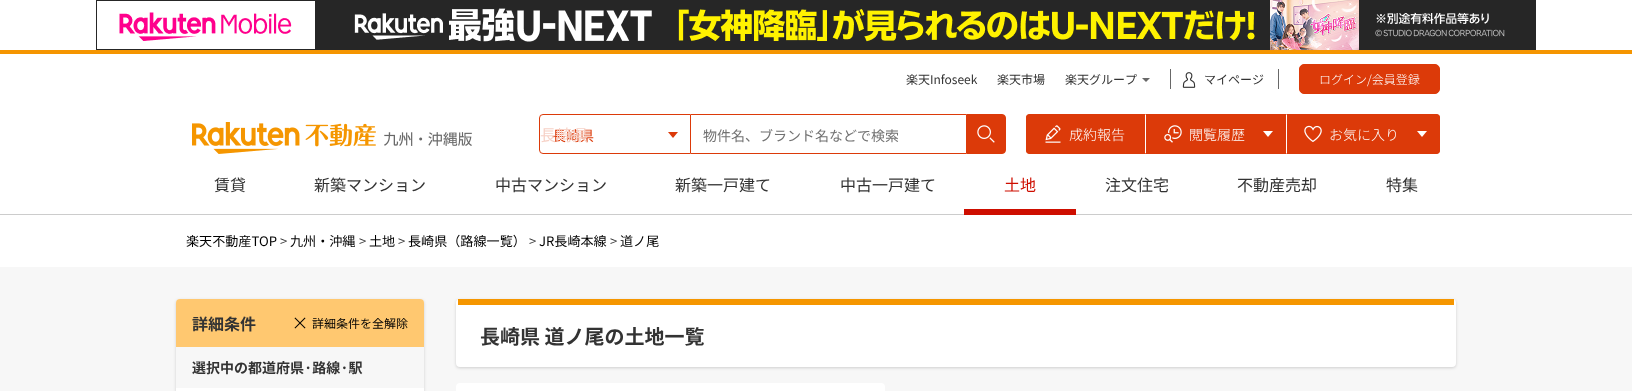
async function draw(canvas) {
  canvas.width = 1632;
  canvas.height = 391;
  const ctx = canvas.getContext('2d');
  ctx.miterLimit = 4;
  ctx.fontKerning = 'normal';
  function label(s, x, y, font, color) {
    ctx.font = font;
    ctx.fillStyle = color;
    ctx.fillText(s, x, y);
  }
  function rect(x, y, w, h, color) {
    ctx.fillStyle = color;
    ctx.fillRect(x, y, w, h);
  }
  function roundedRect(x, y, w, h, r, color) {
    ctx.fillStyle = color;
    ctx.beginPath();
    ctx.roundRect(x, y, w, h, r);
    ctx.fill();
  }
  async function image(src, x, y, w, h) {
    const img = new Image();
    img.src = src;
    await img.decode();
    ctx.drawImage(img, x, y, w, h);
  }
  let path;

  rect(0, 0, 1632, 391, '#fff');
  await image('assets/img1.png', 96, 0, 1440, 50);
  rect(0, 50, 1632, 4, '#f59500');
  rect(0, 214, 1632, 1, '#ccc');
  label('楽天Infoseek', 906, 84, '12px Noto Sans JP', '#333');
  label('楽天市場', 997, 84, '12px Noto Sans JP', '#333');
  label('楽天グループ', 1065, 84, '12px Noto Sans JP', '#333');
  ctx.fillStyle = '#686868';
  path = new Path2D('M1142 78H1150L1146 82Z');
  ctx.fill(path);
  rect(1170, 69, 1, 20, '#686868');
  await image('assets/img2.png', 1182, 72, 14, 16);
  label('マイページ', 1204, 84, '12px Noto Sans JP', '#333');
  rect(1278, 69, 1, 20, '#686868');
  ctx.fillStyle = '#dc3a09';
  ctx.beginPath();
  ctx.roundRect(1299.5, 64.5, 140, 29, 4.5);
  ctx.fill();
  ctx.strokeStyle = '#dc3a09';
  ctx.stroke();
  label('ログイン/会員登録', 1319, 84, '300 12px Noto Sans JP', '#fff');
  await image('assets/img3.png', 192, 122, 184, 32);
  await image('assets/img4.png', 384, 132, 88, 14);
  ctx.beginPath();
  ctx.roundRect(539.5, 114.5, 151, 39, [3.5, 0, 0, 3.5]);
  ctx.stroke();
  label('長崎県', 552, 141, '14px Noto Sans JP', '#dc3a09');
  label('長崎県', 540, 141, '16px Noto Sans JP', '#f7d2c7');
  ctx.fillStyle = '#dc3a09';
  path = new Path2D('M668 132H678L673 138Z');
  ctx.fill(path);
  rect(691, 114, 275, 1, '#dc3a09');
  rect(691, 153, 275, 1, '#dc3a09');
  label('物件名、ブランド名などで検索', 703, 141, '14px Noto Sans JP', '#717171');
  ctx.fillStyle = '#dc3a09';
  ctx.beginPath();
  ctx.roundRect(966.5, 114.5, 39, 39, [0, 3.5, 3.5, 0]);
  ctx.fill();
  ctx.stroke();
  await image('assets/img5.png', 977, 125, 18, 18);
  ctx.beginPath();
  ctx.roundRect(1026, 114, 120, 40, [4, 0, 0, 4]);
  ctx.fill();
  path = new Path2D('M1030 114L1027 115L1028 116L1030 115H1145L1146 114Z');
  ctx.fill(path);
  ctx.fillStyle = '#fff';
  path = new Path2D('M1146 114L1145 115V153L1146 154Z');
  ctx.fill(path);
  ctx.fillStyle = '#dc3a09';
  path = new Path2D('M1146 154L1145 153H1030L1028 152L1027 153L1030 154Z');
  ctx.fill(path);
  path = new Path2D('M1026 118V150C1026 151 1026.5 152 1027 153L1028 152C1027 152 1027 151 1027 150V118C1027 117 1027 116 1028 116L1027 115C1026.5 116 1026 117 1026 118Z');
  ctx.fill(path);
  await image('assets/img6.png', 1045, 125, 16, 18);
  label('成約報告', 1069, 140, '300 14px Noto Sans JP', '#fff');
  rect(1146, 114, 140, 40, '#dc3a09');
  await image('assets/img7.png', 1164, 125, 18, 18);
  label('閲覧履歴', 1189, 140, '300 14px Noto Sans JP', '#fff');
  path = new Path2D('M1263 131H1273L1268 137Z');
  ctx.fill(path);
  ctx.fillStyle = '#dc3a09';
  ctx.beginPath();
  ctx.roundRect(1286, 114, 154, 40, [0, 4, 4, 0]);
  ctx.fill();
  path = new Path2D('M1286 114L1287 115H1436L1438 116L1439 115L1436 114Z');
  ctx.fill(path);
  path = new Path2D('M1440 150V118C1440 117 1439.5 116 1439 115L1438 116C1439 116 1439 117 1439 118V150C1439 151 1439 152 1438 152L1439 153C1439.5 152 1440 151 1440 150Z');
  ctx.fill(path);
  path = new Path2D('M1436 154L1439 153L1438 152L1436 153H1287L1286 154Z');
  ctx.fill(path);
  ctx.fillStyle = '#fff';
  path = new Path2D('M1286 114V154L1287 153V115Z');
  ctx.fill(path);
  await image('assets/img8.png', 1304, 125, 18, 17);
  label('お気に入り', 1329, 140, '300 14px Noto Sans JP', '#fff');
  path = new Path2D('M1417 131H1427L1422 137Z');
  ctx.fill(path);
  label('賃貸', 214, 191, '16px Noto Sans JP', '#333');
  label('新築マンション', 314, 191, '16px Noto Sans JP', '#333');
  label('中古マンション', 495, 191, '16px Noto Sans JP', '#333');
  label('新築一戸建て', 675, 191, '16px Noto Sans JP', '#333');
  label('中古一戸建て', 840, 191, '16px Noto Sans JP', '#333');
  label('土地', 1004, 191, '16px Noto Sans JP', '#ce0e00');
  rect(964, 209, 112, 6, '#ce0e00');
  label('注文住宅', 1105, 191, '16px Noto Sans JP', '#333');
  label('不動産売却', 1237, 191, '16px Noto Sans JP', '#333');
  label('特集', 1386, 191, '16px Noto Sans JP', '#333');
  label('楽天不動産TOP', 186, 246, '13.1px Noto Sans JP', '#000');
  label('>', 280, 246, '13.1px Noto Sans JP', '#333');
  label('九州・沖縄', 290, 246, '13.1px Noto Sans JP', '#000');
  label('>', 359, 246, '13.1px Noto Sans JP', '#333');
  label('土地', 369, 246, '13.1px Noto Sans JP', '#000');
  label('>', 398, 246, '13.1px Noto Sans JP', '#333');
  label('長崎県（路線一覧）', 408, 246, '13.1px Noto Sans JP', '#000');
  label('>', 529, 246, '13.1px Noto Sans JP', '#333');
  label('JR長崎本線', 539, 246, '13.1px Noto Sans JP', '#000');
  label('>', 610, 246, '13.1px Noto Sans JP', '#333');
  label('道ノ尾', 620, 246, '13.1px Noto Sans JP', '#000');
  rect(0, 267, 1632, 124, '#f7f7f7');
  ctx.fillStyle = '#00000029';
  ctx.filter = 'blur(1.5px)';
  ctx.beginPath();
  ctx.roundRect(176, 300, 248, 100, 4);
  ctx.fill();
  ctx.filter = 'none';
  roundedRect(176, 299, 248, 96, 4, '#fff');
  ctx.fillStyle = '#ffc870';
  ctx.beginPath();
  ctx.roundRect(176, 299, 248, 48, [4, 4, 0, 0]);
  ctx.fill();
  label('詳細条件', 192, 330, 'bold 16px Noto Sans JP', '#333');
  await image('assets/img9.png', 294, 317, 12, 12);
  label('詳細条件を全解除', 312, 328, '12px Noto Sans JP', '#000');
  rect(176, 347, 248, 41, '#f7f7f7');
  label('選択中の都道府県·路線·駅', 192, 373, 'bold 14px Noto Sans JP', '#333');
  ctx.fillStyle = '#00000029';
  ctx.filter = 'blur(1.5px)';
  ctx.beginPath();
  ctx.roundRect(456, 300, 1000, 68, 4);
  ctx.fill();
  ctx.filter = 'none';
  roundedRect(456, 299, 1000, 68, 4, '#fff');
  rect(458, 299, 996, 6, '#f59600');
  label('長崎県 道ノ尾の土地一覧', 480, 344, 'bold 20px Noto Sans JP', '#333');
  roundedRect(456, 383, 429, 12, 4, '#fff');
}

draw(document.querySelector('canvas'));
